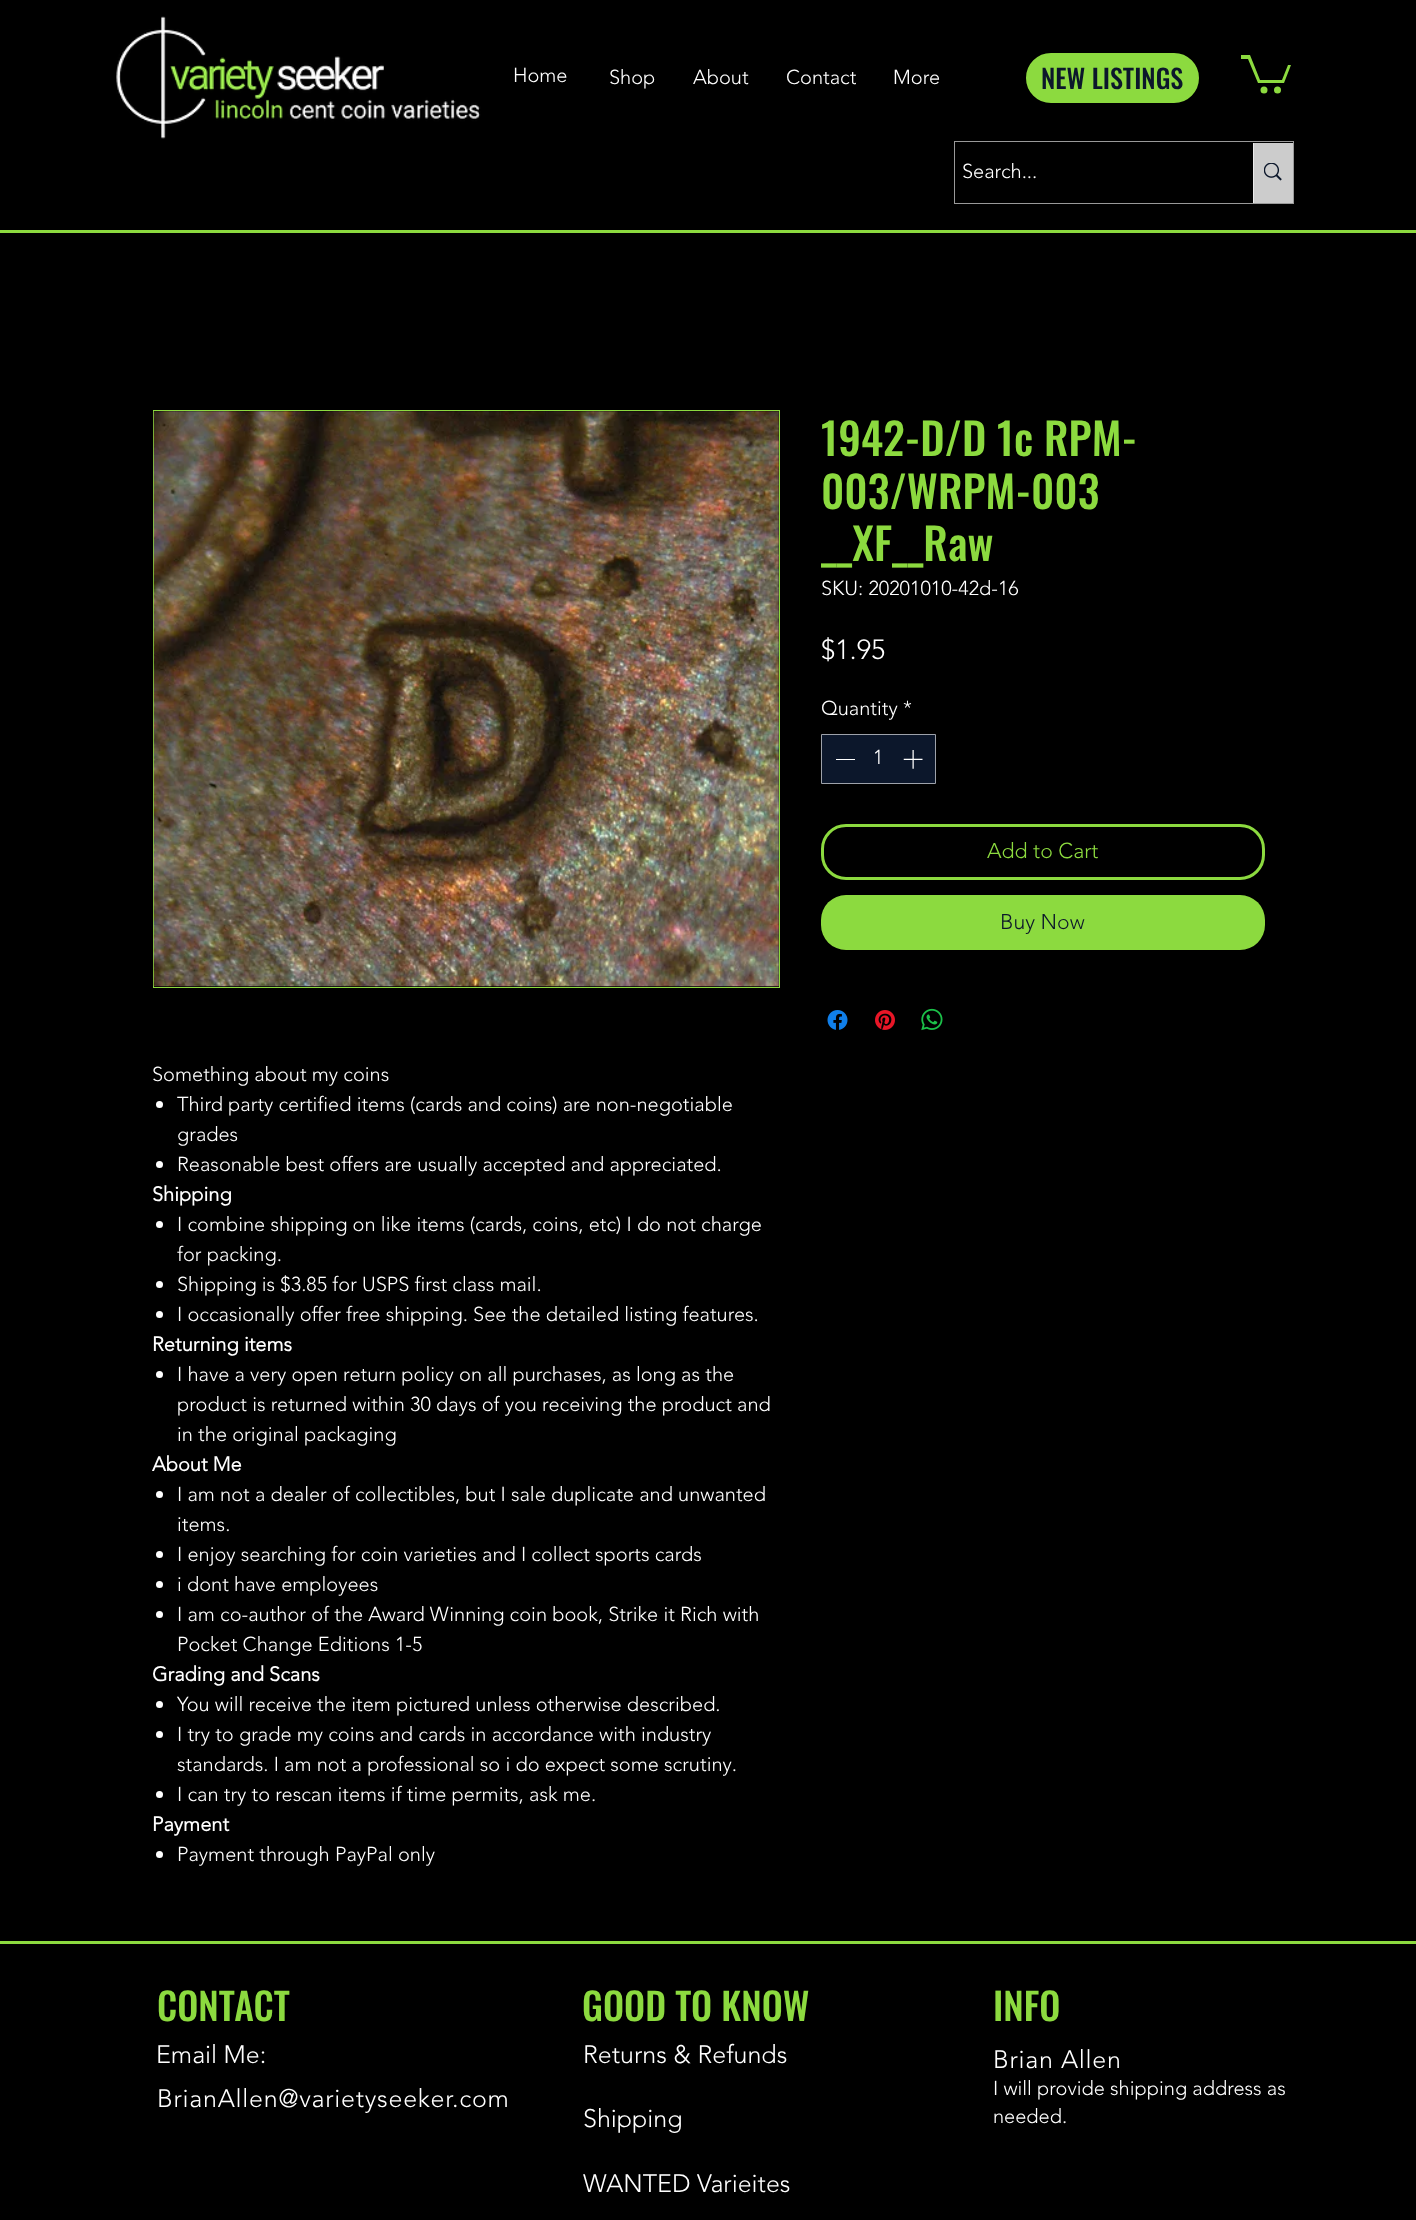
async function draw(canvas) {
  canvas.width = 1416;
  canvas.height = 2220;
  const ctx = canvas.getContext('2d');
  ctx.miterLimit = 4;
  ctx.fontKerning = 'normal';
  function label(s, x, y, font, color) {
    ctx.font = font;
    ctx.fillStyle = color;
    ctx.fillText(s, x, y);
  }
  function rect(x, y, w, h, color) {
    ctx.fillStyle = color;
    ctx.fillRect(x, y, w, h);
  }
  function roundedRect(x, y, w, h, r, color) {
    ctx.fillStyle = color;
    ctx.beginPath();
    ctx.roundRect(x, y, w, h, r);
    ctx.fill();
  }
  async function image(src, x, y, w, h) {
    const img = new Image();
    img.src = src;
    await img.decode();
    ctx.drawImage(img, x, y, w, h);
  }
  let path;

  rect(0, 0, 1416, 2220, '#000');
  await image('assets/img1.png', 116, 16, 365, 123);
  label('Home', 513, 82, '300 20px "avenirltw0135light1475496"', '#fff');
  label('Shop', 609, 84, '300 20px "avenirltw0135light1475496"', '#fff');
  label('About', 693, 84, '300 20px "avenirltw0135light1475496"', '#fff');
  label('Contact', 786, 84, '300 20px "avenirltw0135light1475496"', '#fff');
  label('More', 893, 84, '300 20px "avenirltw0135light1475496"', '#fff');
  ctx.fillStyle = '#8cda3f';
  ctx.beginPath();
  ctx.roundRect(1027.5, 54.5, 170, 47, 23.5);
  ctx.fill();
  ctx.strokeStyle = '#8cda3f';
  ctx.lineWidth = 3;
  ctx.stroke();
  label('NEW LISTINGS', 1041, 89, '500 26.25px Oswald', '#0c172b');
  ctx.fillStyle = '#8cda3f';
  path = new Path2D('M1291 65L1284 83H1258L1248 59H1241V55H1250L1260 80H1282L1288 65');
  ctx.fill(path);
  ctx.beginPath();
  ctx.arc(1277.5, 90, 3.5, 0, 2 * Math.PI);
  ctx.fill();
  ctx.beginPath();
  ctx.arc(1264, 90, 3.5, 0, 2 * Math.PI);
  ctx.fill();
  ctx.strokeStyle = '#999';
  ctx.lineWidth = 1;
  ctx.strokeRect(954.5, 141.5, 339, 62);
  label('Search...', 962, 178, '300 20px "avenirltw0135light1475496"', '#fff');
  rect(1254, 143, 39, 60, '#ccc');
  rect(1253, 143, 1, 60, '#ebebeb');
  await image('assets/img2.png', 1264, 163, 18, 18);
  rect(0, 230, 1416, 3, '#8cda3f');
  label('1942-D/D 1c RPM-', 821, 456, '500 43.75px Oswald', '#8cda3f');
  label('003/WRPM-003', 821, 509, '500 43.75px Oswald', '#8cda3f');
  label('__XF__Raw', 821, 561, '500 43.75px Oswald', '#8cda3f');
  label('SKU: 20201010-42d-16', 821, 595, '300 20px "avenirltw0135light1475496"', '#fff');
  label('$1.95', 821, 659, '300 27.5px "avenirltw0135light1475496"', '#fff');
  label('Quantity *', 821, 715, '300 20px "avenirltw0135light1475496"', '#fff');
  ctx.fillStyle = '#0c172b';
  ctx.beginPath();
  ctx.rect(821.5, 734.5, 114, 49);
  ctx.fill();
  ctx.strokeStyle = '#9ea2aa';
  ctx.stroke();
  rect(836, 759, 19, 1, '#fff');
  label('1', 873, 764, '300 20px "avenirltw0135light1475496"', '#fff');
  await image('assets/img3.png', 903, 750, 20, 19);
  ctx.beginPath();
  ctx.roundRect(822.5, 825.5, 441, 53, 23.5);
  ctx.strokeStyle = '#8cda3f';
  ctx.lineWidth = 3;
  ctx.stroke();
  label('Add to Cart', 987, 858, '300 21.25px "avenirltw0135light1475496"', '#8cda3f');
  roundedRect(821, 895, 444, 55, 25, '#8cda3f');
  label('Buy Now', 1000, 929, '300 21.25px "avenirltw0135light1475496"', '#0c172b');
  await image('assets/img4.png', 827, 1010, 21, 20);
  await image('assets/img5.png', 875, 1010, 20, 20);
  await image('assets/img6.png', 921, 1008, 22, 23);
  ctx.lineWidth = 1;
  ctx.strokeRect(153.5, 410.5, 626, 577);
  await image('assets/img7.png', 153, 411, 626, 576);
  label('Something about my coins', 152, 1081, '300 20px "avenirltw0135light1475496"', '#fff');
  ctx.beginPath();
  ctx.arc(159.5, 1104.5, 3.5, 0, 2 * Math.PI);
  ctx.fill();
  label('Third party certified items (cards and coins) are non-negotiable', 177, 1111, '300 20px "avenirltw0135light1475496"', '#fff');
  label('grades', 177, 1141, '300 20px "avenirltw0135light1475496"', '#fff');
  ctx.beginPath();
  ctx.arc(159.5, 1164.5, 3.5, 0, 2 * Math.PI);
  ctx.fill();
  label('Reasonable best offers are usually accepted and appreciated.', 177, 1171, '300 20px "avenirltw0135light1475496"', '#fff');
  label('Shipping', 152, 1201, 'bold 20px "avenirltw0135light1475496"', '#fff');
  ctx.beginPath();
  ctx.arc(159.5, 1224.5, 3.5, 0, 2 * Math.PI);
  ctx.fill();
  label('I combine shipping on like items (cards, coins, etc) I do not charge', 177, 1231, '300 20px "avenirltw0135light1475496"', '#fff');
  label('for packing.', 177, 1261, '300 20px "avenirltw0135light1475496"', '#fff');
  ctx.beginPath();
  ctx.arc(159.5, 1284.5, 3.5, 0, 2 * Math.PI);
  ctx.fill();
  label('Shipping is $3.85 for USPS first class mail.', 177, 1291, '300 20px "avenirltw0135light1475496"', '#fff');
  ctx.beginPath();
  ctx.arc(159.5, 1314.5, 3.5, 0, 2 * Math.PI);
  ctx.fill();
  label('I occasionally offer free shipping. See the detailed listing features.', 177, 1321, '300 20px "avenirltw0135light1475496"', '#fff');
  label('Returning items', 152, 1351, 'bold 20px "avenirltw0135light1475496"', '#fff');
  ctx.beginPath();
  ctx.arc(159.5, 1374.5, 3.5, 0, 2 * Math.PI);
  ctx.fill();
  label('I have a very open return policy on all purchases, as long as the', 177, 1381, '300 20px "avenirltw0135light1475496"', '#fff');
  label('product is returned within 30 days of you receiving the product and', 177, 1411, '300 20px "avenirltw0135light1475496"', '#fff');
  label('in the original packaging', 177, 1441, '300 20px "avenirltw0135light1475496"', '#fff');
  label('About Me', 152, 1471, 'bold 20px "avenirltw0135light1475496"', '#fff');
  ctx.beginPath();
  ctx.arc(159.5, 1494.5, 3.5, 0, 2 * Math.PI);
  ctx.fill();
  label('I am not a dealer of collectibles, but I sale duplicate and unwanted', 177, 1501, '300 20px "avenirltw0135light1475496"', '#fff');
  label('items.', 177, 1531, '300 20px "avenirltw0135light1475496"', '#fff');
  ctx.beginPath();
  ctx.arc(159.5, 1554.5, 3.5, 0, 2 * Math.PI);
  ctx.fill();
  label('I enjoy searching for coin varieties and I collect sports cards', 177, 1561, '300 20px "avenirltw0135light1475496"', '#fff');
  ctx.beginPath();
  ctx.arc(159.5, 1584.5, 3.5, 0, 2 * Math.PI);
  ctx.fill();
  label('i dont have employees', 177, 1591, '300 20px "avenirltw0135light1475496"', '#fff');
  ctx.beginPath();
  ctx.arc(159.5, 1614.5, 3.5, 0, 2 * Math.PI);
  ctx.fill();
  label('I am co-author of the Award Winning coin book, Strike it Rich with', 177, 1621, '300 20px "avenirltw0135light1475496"', '#fff');
  label('Pocket Change Editions 1-5', 177, 1651, '300 20px "avenirltw0135light1475496"', '#fff');
  label('Grading and Scans', 152, 1681, 'bold 20px "avenirltw0135light1475496"', '#fff');
  ctx.beginPath();
  ctx.arc(159.5, 1704.5, 3.5, 0, 2 * Math.PI);
  ctx.fill();
  label('You will receive the item pictured unless otherwise described.', 177, 1711, '300 20px "avenirltw0135light1475496"', '#fff');
  ctx.beginPath();
  ctx.arc(159.5, 1734.5, 3.5, 0, 2 * Math.PI);
  ctx.fill();
  label('I try to grade my coins and cards in accordance with industry', 177, 1741, '300 20px "avenirltw0135light1475496"', '#fff');
  label('standards. I am not a professional so i do expect some scrutiny.', 177, 1771, '300 20px "avenirltw0135light1475496"', '#fff');
  ctx.beginPath();
  ctx.arc(159.5, 1794.5, 3.5, 0, 2 * Math.PI);
  ctx.fill();
  label('I can try to rescan items if time permits, ask me.', 177, 1801, '300 20px "avenirltw0135light1475496"', '#fff');
  label('Payment', 152, 1831, 'bold 20px "avenirltw0135light1475496"', '#fff');
  ctx.beginPath();
  ctx.arc(159.5, 1854.5, 3.5, 0, 2 * Math.PI);
  ctx.fill();
  label('Payment through PayPal only', 177, 1861, '300 20px "avenirltw0135light1475496"', '#fff');
  rect(0, 1941, 1416, 3, '#8cda3f');
  label('CONTACT', 157, 2021, '500 37.5px Oswald', '#8cda3f');
  label('GOOD TO KNOW', 582, 2021, '500 37.5px Oswald', '#8cda3f');
  label('INFO', 993, 2021, '500 37.5px Oswald', '#8cda3f');
  label('Email Me:', 156, 2063, '300 25px "avenirltw0135light1475496"', '#fff');
  label('Returns & Refunds', 583, 2063, '300 25px "avenirltw0135light1475496"', '#fff');
  ctx.letterSpacing = '0.75px';
  label('Brian Allen', 993, 2068, '300 25px "avenirltw0135light1475496"', '#fff');
  ctx.letterSpacing = '0px';
  label('I will provide shipping address as', 993, 2095, '300 20px "avenirltw0135light1475496"', '#fff');
  label('needed.', 993, 2123, '300 20px "avenirltw0135light1475496"', '#fff');
  ctx.letterSpacing = '0.75px';
  label('BrianAllen@varietyseeker.com', 157, 2107, '300 25px "avenirltw0135light1475496"', '#fff');
  ctx.letterSpacing = '0px';
  label('Shipping', 583, 2127, '300 25px "avenirltw0135light1475496"', '#fff');
  label('WANTED Varieites', 583, 2192, '300 25px "avenirltw0135light1475496"', '#fff');
}

draw(document.querySelector('canvas'));
